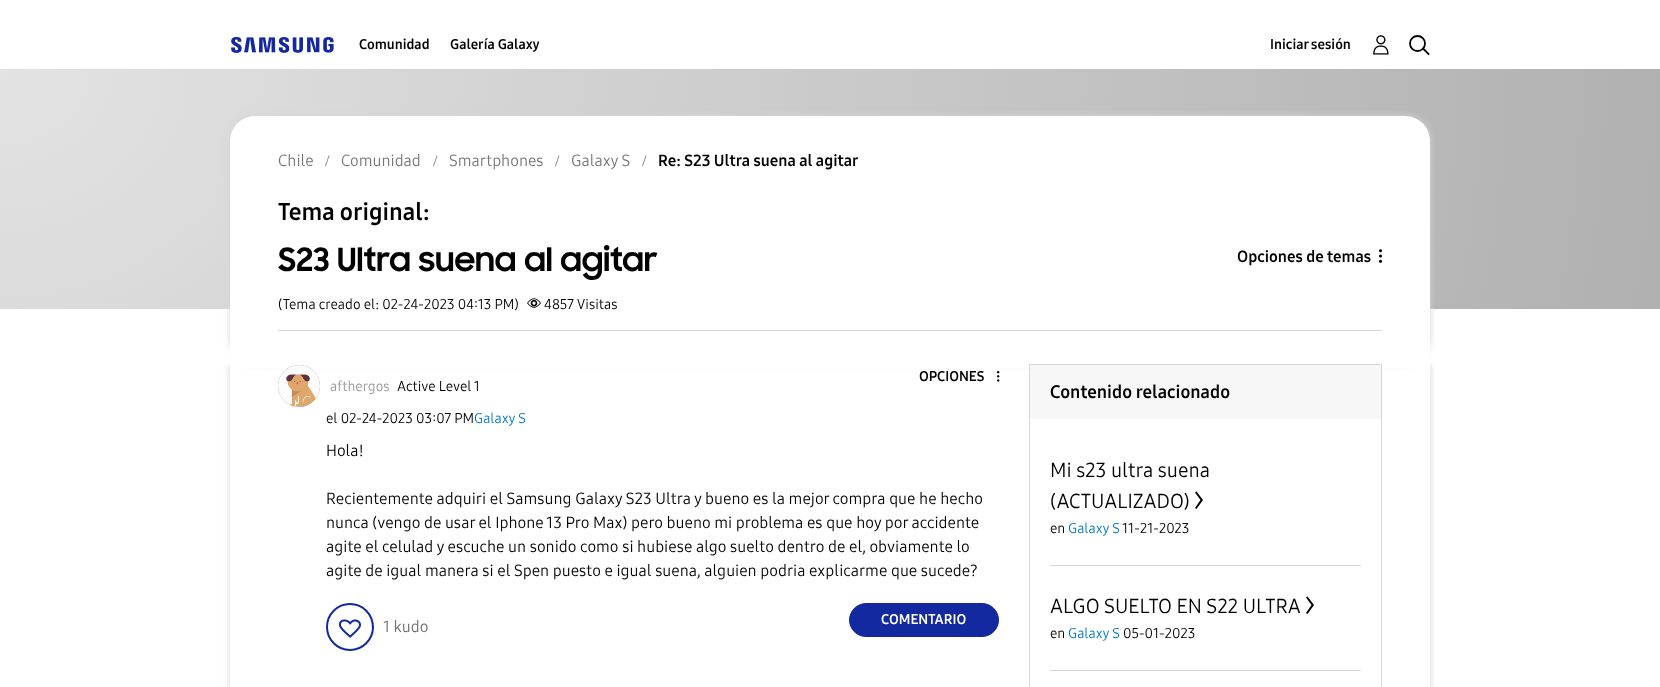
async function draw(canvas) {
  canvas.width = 1660;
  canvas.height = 687;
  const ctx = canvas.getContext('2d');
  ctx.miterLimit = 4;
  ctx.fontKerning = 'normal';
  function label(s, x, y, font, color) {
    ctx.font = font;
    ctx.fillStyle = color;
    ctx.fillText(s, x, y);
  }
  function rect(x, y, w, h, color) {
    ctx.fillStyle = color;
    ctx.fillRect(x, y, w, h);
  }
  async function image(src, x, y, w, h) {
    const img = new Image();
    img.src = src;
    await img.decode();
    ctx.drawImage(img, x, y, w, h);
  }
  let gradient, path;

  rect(0, 0, 1660, 687, '#fff');
  ctx.save();
  path = new Path2D('M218 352H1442V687H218ZM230 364H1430V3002H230Z');
  ctx.clip(path, 'evenodd');
  ctx.fillStyle = '#d6d6d6';
  ctx.filter = 'blur(3.5px)';
  ctx.beginPath();
  ctx.rect(230, 364, 1200, 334);
  ctx.fill();
  ctx.filter = 'none';
  ctx.restore();
  rect(226, 359, 1208, 5, '#fff');
  await image('assets/img1.png', 231, 37, 103, 16);
  label('Comunidad', 359, 49, 'bold 14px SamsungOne', '#000');
  label('Galería Galaxy', 450, 49, 'bold 14px SamsungOne', '#000');
  label('Iniciar sesión', 1270, 49, 'bold 14px SamsungOne', '#000');
  await image('assets/img2.png', 1373, 35, 16, 20);
  ctx.beginPath();
  ctx.arc(1417.5, 43.5, 7.5, 0, 2 * Math.PI);
  ctx.strokeStyle = '#000';
  ctx.lineWidth = 1.8;
  ctx.stroke();
  path = new Path2D('M1424 49.5L1428.5 54');
  ctx.lineCap = 'square';
  ctx.stroke(path);
  gradient = ctx.createRadialGradient(0, 79.54, 0, 0, 79.54, 1660);
  gradient.addColorStop(0, '#e3e3e3');
  gradient.addColorStop(1, '#b1b1b1');
  ctx.fillStyle = gradient;
  ctx.beginPath();
  ctx.rect(0, 69, 1660, 240);
  ctx.save();
  ctx.clip();
  ctx.scale(1, 1440 / 1660);
  ctx.fillRect(0, 0, 1660, 792);
  ctx.restore();
  ctx.fillStyle = '#d6d6d6';
  ctx.filter = 'blur(3.5px)';
  ctx.beginPath();
  ctx.roundRect(230, 116, 1200, 248, 25);
  ctx.fill();
  ctx.filter = 'none';
  ctx.fillStyle = '#fff';
  ctx.beginPath();
  ctx.roundRect(230, 116, 1200, 248, [25, 25, 0, 0]);
  ctx.fill();
  rect(278, 330, 1104, 1, '#d6d6d6');
  label('Chile', 278, 166, '16px SamsungOne', '#767676');
  label('/', 325, 166, '16px Liberation Serif', '#767676');
  label('Comunidad', 341, 166, '16px SamsungOne', '#767676');
  label('/', 433, 166, '16px Liberation Serif', '#767676');
  label('Smartphones', 449, 166, '16px SamsungOne', '#767676');
  label('/', 555, 166, '16px Liberation Serif', '#767676');
  label('Galaxy S', 571, 166, '16px SamsungOne', '#767676');
  label('/', 642, 166, '16px Liberation Serif', '#767676');
  label('Re: S23 Ultra suena al agitar', 658, 166, 'bold 16px SamsungOne', '#000');
  label('Tema original:', 278, 220, 'bold 24px SamsungOne', '#000');
  label('S23 Ultra suena al agitar', 278, 271, 'bold 32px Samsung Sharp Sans', '#000');
  label('Opciones de temas', 1237, 262, 'bold 16px SamsungOne', '#000');
  await image('assets/img3.png', 1379, 249, 3, 14);
  label('(Tema creado el: 02-24-2023 04:13 PM)', 278, 309, '14px SamsungOne', '#000');
  await image('assets/img4.png', 527, 298, 14, 10);
  label('4857 Visitas', 544, 309, '14px SamsungOne', '#000');
  rect(231, 364, 1198, 4, '#fff');
  rect(278, 368, 721, 1, '#fff');
  label('OPCIONES', 919, 381, 'bold 14px SamsungOne', '#000');
  await image('assets/img5.png', 997, 371, 3, 11);
  ctx.fillStyle = '#999';
  ctx.filter = 'blur(0.5px)';
  ctx.beginPath();
  ctx.roundRect(278, 365, 42, 42, 21);
  ctx.fill();
  ctx.filter = 'none';
  await image('assets/img6.png', 278, 365, 42, 42);
  label('afthergos', 330, 391, '14px SamsungOne', '#999');
  label('Active Level 1', 397, 391, '14px SamsungOne', '#000');
  label('el 02-24-2023 03:07 PM', 326, 423, '14px SamsungOne', '#000');
  label('Galaxy S', 474, 423, '14px SamsungOne', '#0077c8');
  label('Hola!', 326, 456, '16px SamsungOne', '#000');
  label('Recientemente adquiri el Samsung Galaxy S23 Ultra y bueno es la mejor compra que he hecho', 326, 504, '16px SamsungOne', '#000');
  label('nunca (vengo de usar el Iphone 13 Pro Max) pero bueno mi problema es que hoy por accidente', 326, 528, '16px SamsungOne', '#000');
  label('agite el celulad y escuche un sonido como si hubiese algo suelto dentro de el, obviamente lo', 326, 552, '16px SamsungOne', '#000');
  label('agite de igual manera si el Spen puesto e igual suena, alguien podria explicarme que sucede?', 326, 576, '16px SamsungOne', '#000');
  ctx.beginPath();
  ctx.arc(350, 627, 23, 0, 2 * Math.PI);
  ctx.strokeStyle = '#1428a0';
  ctx.lineWidth = 2;
  ctx.stroke();
  await image('assets/img7.png', 339, 619, 22, 19);
  label('1 kudo', 383, 632, '16px SamsungOne', '#6e6e6e');
  ctx.fillStyle = '#1428a0';
  ctx.beginPath();
  ctx.roundRect(849.5, 603.5, 149, 33, 16.5);
  ctx.fill();
  ctx.lineWidth = 1;
  ctx.stroke();
  label('COMENTARIO', 881, 624, 'bold 14px SamsungOne', '#fff');
  rect(1030, 368, 351, 1, '#fff');
  ctx.strokeStyle = '#d6d6d6';
  ctx.strokeRect(1029.5, 364.5, 352, 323);
  ctx.fillStyle = '#f7f7f7';
  ctx.beginPath();
  ctx.roundRect(1030, 365, 351, 54, [2, 2, 0, 0]);
  ctx.fill();
  label('Contenido relacionado', 1050, 398, 'bold 18px SamsungOne', '#000');
  rect(1050, 565, 311, 1, '#d6d6d6');
  label('Mi s23 ultra suena', 1050, 477, '20px SamsungOne', '#000');
  label('(ACTUALIZADO)', 1050, 508, '20px SamsungOne', '#000');
  path = new Path2D('M1196.5 491.5L1203 500L1196.5 509L1195 508L1200.5 500L1195 492.5Z');
  ctx.fill(path);
  label('en', 1050, 533, '14px SamsungOne', '#000');
  label('Galaxy S', 1068, 533, '14px SamsungOne', '#0077c8');
  label('11-21-2023', 1122, 533, '14px SamsungOne', '#000');
  rect(1050, 670, 311, 1, '#d6d6d6');
  label('ALGO SUELTO EN S22 ULTRA', 1050, 613, '20px SamsungOne', '#000');
  path = new Path2D('M1307.5 596.5L1314 605L1307.5 614L1306 613L1311.5 605L1306 597.5Z');
  ctx.fill(path);
  label('en', 1050, 638, '14px SamsungOne', '#000');
  label('Galaxy S', 1068, 638, '14px SamsungOne', '#0077c8');
  label('05-01-2023', 1123, 638, '14px SamsungOne', '#000');
}

draw(document.querySelector('canvas'));
